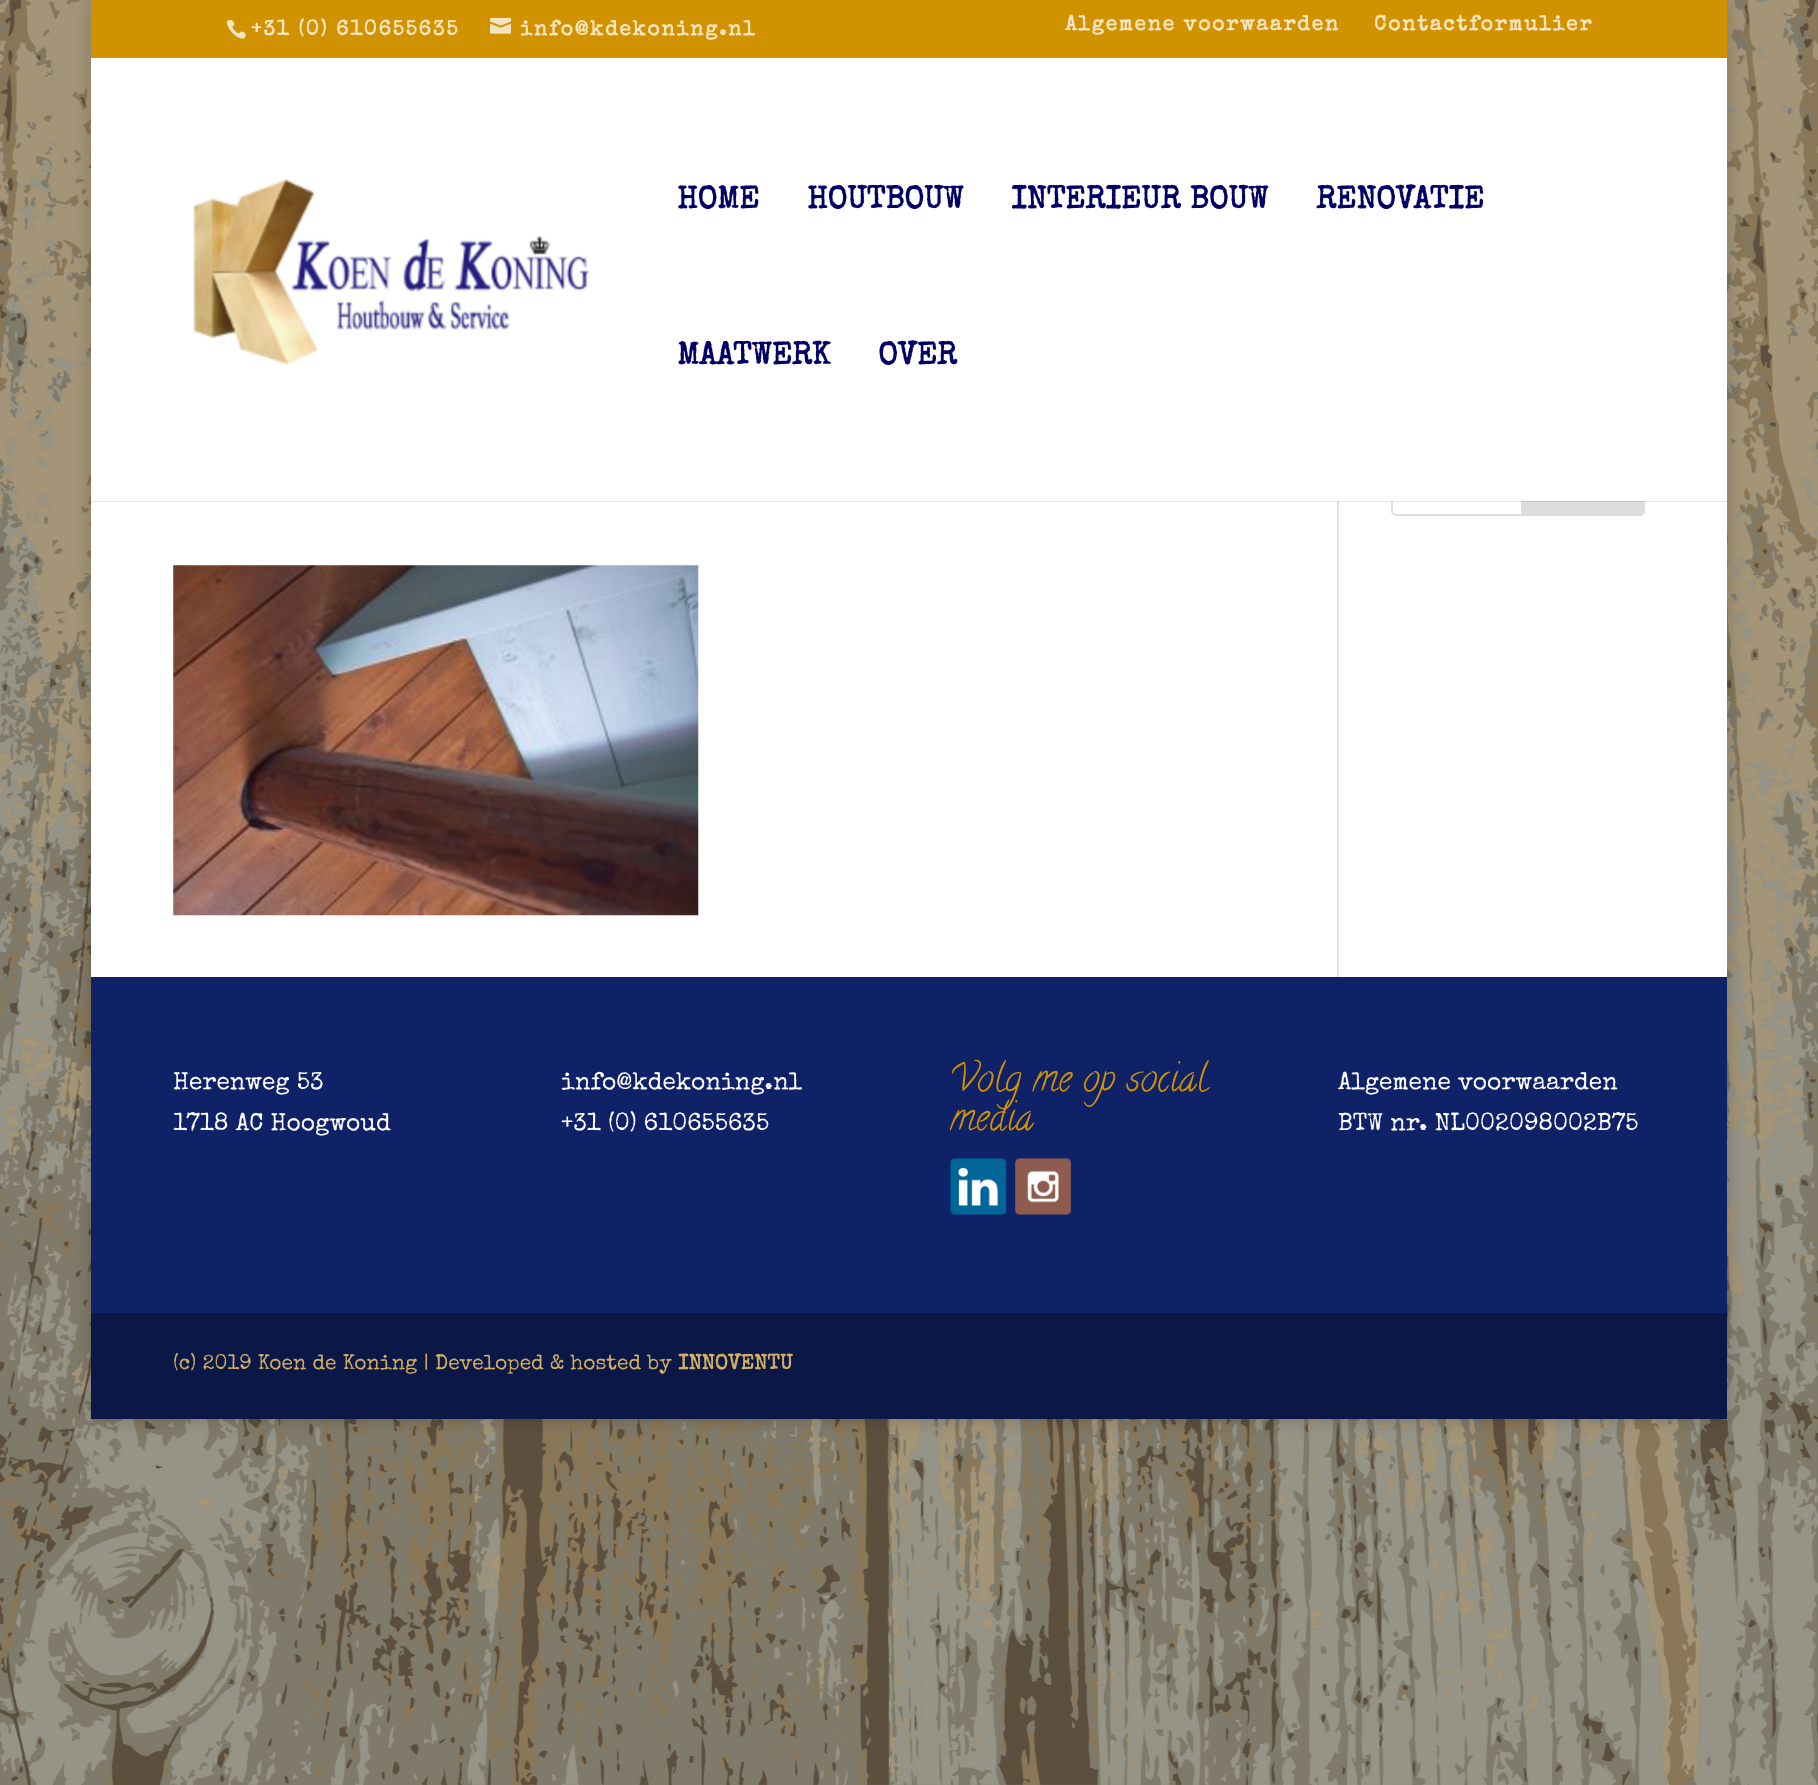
async function draw(canvas) {
  canvas.width = 1818;
  canvas.height = 1785;
  const ctx = canvas.getContext('2d');
  ctx.miterLimit = 4;
  ctx.fontKerning = 'normal';
  function label(s, x, y, font, color) {
    ctx.font = font;
    ctx.fillStyle = color;
    ctx.fillText(s, x, y);
  }
  function rect(x, y, w, h, color) {
    ctx.fillStyle = color;
    ctx.fillRect(x, y, w, h);
  }
  async function image(src, x, y, w, h) {
    const img = new Image();
    img.src = src;
    await img.decode();
    ctx.drawImage(img, x, y, w, h);
  }

  rect(0, 0, 1818, 1785, '#fff');
  await image('assets/img1.png', 0, 0, 1818, 1785);
  ctx.fillStyle = '#00000033';
  ctx.filter = 'blur(9px)';
  ctx.beginPath();
  ctx.rect(91, 0, 1636, 1419);
  ctx.fill();
  ctx.filter = 'none';
  rect(91, 0, 1636, 58, '#d19200');
  await image('assets/img2.png', 226, 19, 20, 20);
  ctx.letterSpacing = '1.75px';
  label('+31 (0) 610655635', 251, 35, 'bold 21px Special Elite', '#f4e4bf');
  await image('assets/img3.png', 490, 17, 21, 17);
  label('info@kdekoning.nl', 520, 35, 'bold 21px Special Elite', '#f4e4bf');
  label('Algemene voorwaarden', 1065, 30, 'bold 21px Special Elite', '#f4e4bf');
  label('Contactformulier', 1374, 30, 'bold 21px Special Elite', '#f4e4bf');
  rect(91, 501, 1636, 476, '#fff');
  ctx.beginPath();
  ctx.roundRect(1392, 447, 252, 68, 4);
  ctx.strokeStyle = '#ddd';
  ctx.lineWidth = 2;
  ctx.stroke();
  ctx.fillStyle = '#ddd';
  ctx.beginPath();
  ctx.roundRect(1522, 447, 122, 68, [0, 4, 4, 0]);
  ctx.fill();
  ctx.stroke();
  rect(1337, 501, 2, 476, '#e2e2e2');
  rect(91, 501, 1636, 1, '#0000001a');
  rect(91, 58, 1636, 443, '#fff');
  await image('assets/img4.png', 193, 178, 397, 187);
  ctx.letterSpacing = '0px';
  label('HOME', 677, 208, 'bold 31.5px Special Elite', '#006');
  label('HOUTBOUW', 807, 208, 'bold 31.5px Special Elite', '#006');
  label('INTERIEUR BOUW', 1011, 208, 'bold 31.5px Special Elite', '#006');
  label('RENOVATIE', 1316, 208, 'bold 31.5px Special Elite', '#006');
  label('MAATWERK', 677, 364, 'bold 31.5px Special Elite', '#006');
  label('OVER', 878, 364, 'bold 31.5px Special Elite', '#006');
  await image('assets/img5.png', 173, 565, 526, 351);
  rect(91, 977, 1636, 336, '#0f2268');
  label('Herenweg 53', 173, 1089, '24.5px Special Elite', '#fff');
  label('1718 AC Hoogwoud', 173, 1130, '24.5px Special Elite', '#fff');
  label('info@kdekoning.nl', 561, 1089, '24.5px Special Elite', '#fff');
  label('+31 (0) 610655635', 561, 1130, '24.5px Special Elite', '#fff');
  label('Volg me op social', 950, 1090, '38.5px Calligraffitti', '#d19200');
  label('media', 950, 1129, '38.5px Calligraffitti', '#d19200');
  await image('assets/img6.png', 950, 1158, 57, 57);
  await image('assets/img7.png', 1015, 1158, 56, 57);
  label('Algemene voorwaarden', 1338, 1089, '24.5px Special Elite', '#fff');
  label('BTW nr. NL002098002B75', 1338, 1130, '24.5px Special Elite', '#fff');
  rect(91, 1313, 1636, 106, '#0a1747');
  label('(c) 2019 Koen de Koning | Developed & hosted by', 173, 1369, '21px Special Elite', '#d1af62');
  label('INNOVENTU', 678, 1369, 'bold 21px Special Elite', '#d1af62');
}

draw(document.querySelector('canvas'));
